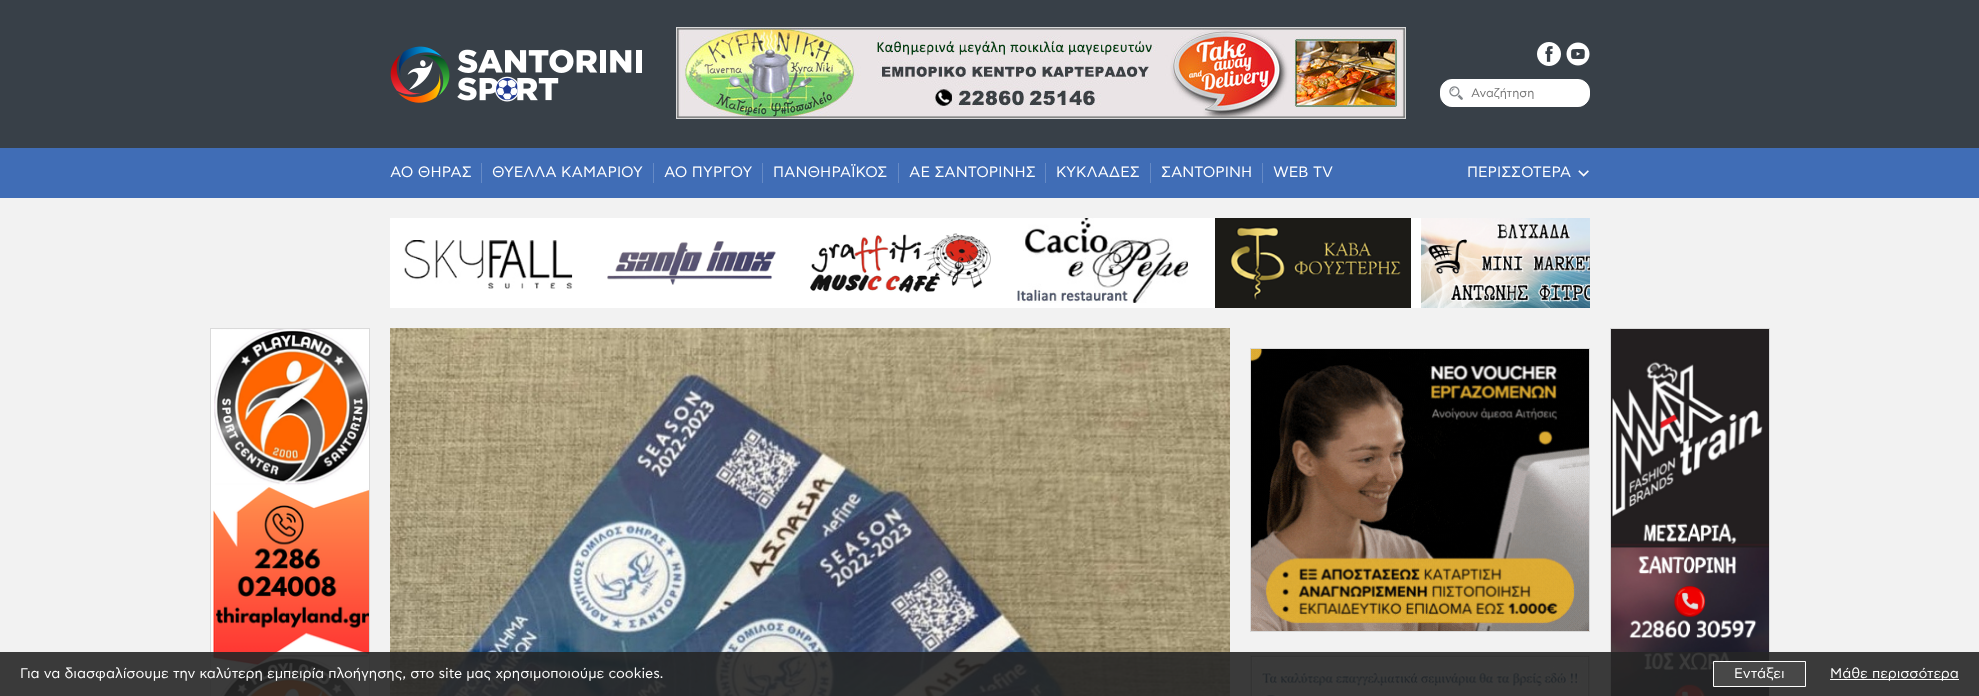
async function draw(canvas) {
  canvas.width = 1979;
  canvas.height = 696;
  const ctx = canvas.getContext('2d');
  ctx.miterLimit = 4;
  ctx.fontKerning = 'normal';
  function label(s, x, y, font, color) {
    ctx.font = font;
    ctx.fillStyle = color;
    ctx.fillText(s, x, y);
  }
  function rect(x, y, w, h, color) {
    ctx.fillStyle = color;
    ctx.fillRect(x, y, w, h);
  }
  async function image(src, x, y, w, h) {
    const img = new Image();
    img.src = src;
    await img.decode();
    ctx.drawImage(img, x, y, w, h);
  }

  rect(0, 0, 1979, 696, '#f2f2f2');
  rect(0, 0, 1979, 148, '#384048');
  await image('assets/img1.png', 390, 46, 252, 57);
  ctx.strokeStyle = '#dadada';
  ctx.strokeRect(676.5, 27.5, 729, 91);
  await image('assets/img2.png', 677, 28, 728, 90);
  await image('assets/img3.png', 1537, 42, 24, 24);
  await image('assets/img4.png', 1566, 42, 24, 24);
  ctx.fillStyle = '#fff';
  ctx.beginPath();
  ctx.roundRect(1440.5, 79.5, 149, 27, 11.5);
  ctx.fill();
  ctx.strokeStyle = '#fff';
  ctx.stroke();
  await image('assets/img5.png', 1449, 86, 14, 14);
  ctx.save();
  ctx.beginPath();
  ctx.rect(1471, 87, 108, 12);
  ctx.clip();
  label('Αναζήτηση', 1471, 97, '12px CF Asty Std', '#757575');
  ctx.restore();
  rect(0, 148, 1979, 50, '#406db6');
  label('ΑΟ ΘΗΡΑΣ', 390, 177, '15px CF Asty Std', '#fff');
  rect(481, 163, 1, 20, '#668ac5');
  label('ΘΥΕΛΛΑ ΚΑΜΑΡΙΟΥ', 492, 177, '15px CF Asty Std', '#fff');
  rect(653, 163, 1, 20, '#668ac5');
  label('ΑΟ ΠΥΡΓΟΥ', 664, 177, '15px CF Asty Std', '#fff');
  rect(762, 163, 1, 20, '#668ac5');
  label('ΠΑΝΘΗΡΑΪΚΟΣ', 773, 177, '15px CF Asty Std', '#fff');
  rect(898, 163, 1, 20, '#668ac5');
  label('ΑΕ ΣΑΝΤΟΡΙΝΗΣ', 909, 177, '15px CF Asty Std', '#fff');
  rect(1045, 163, 1, 20, '#668ac5');
  label('ΚΥΚΛΑΔΕΣ', 1056, 177, '15px CF Asty Std', '#fff');
  rect(1150, 163, 1, 20, '#668ac5');
  label('ΣΑΝΤΟΡΙΝΗ', 1161, 177, '15px CF Asty Std', '#fff');
  rect(1262, 163, 1, 20, '#668ac5');
  label('WEB TV', 1273, 177, '15px CF Asty Std', '#fff');
  await image('assets/img6.png', 1578, 170, 11, 7);
  label('ΠΕΡΙΣΣΟΤΕΡΑ', 1467, 177, '15px CF Asty Std', '#fff');
  rect(390, 218, 1031, 90, '#fff');
  await image('assets/img7.png', 404, 240, 169, 49);
  await image('assets/img8.png', 607, 241, 169, 44);
  await image('assets/img9.png', 810, 233, 181, 60);
  await image('assets/img10.png', 1017, 218, 171, 85);
  await image('assets/img11.png', 1215, 218, 196, 90);
  await image('assets/img12.png', 1421, 218, 169, 90);
  ctx.strokeStyle = '#dadada';
  ctx.strokeRect(210.5, 328.5, 159, 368);
  await image('assets/img13.png', 211, 329, 158, 367);
  await image('assets/img14.png', 390, 328, 840, 368);
  ctx.strokeRect(1250.5, 348.5, 339, 283);
  await image('assets/img15.png', 1251, 349, 338, 282);
  ctx.strokeRect(1250.5, 655.5, 339, 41);
  await image('assets/img16.png', 1251, 656, 338, 40);
  ctx.strokeRect(1610.5, 328.5, 159, 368);
  await image('assets/img17.png', 1611, 329, 158, 367);
  rect(0, 652, 1979, 44, '#262626e6');
  label('Για να διασφαλίσουμε την καλύτερη εμπειρία πλοήγησης, στο site μας χρησιμοποιούμε cookies.', 20, 678, '14px CF Asty Std', '#fff');
  ctx.fillStyle = '#484848';
  ctx.beginPath();
  ctx.rect(1713.5, 661.5, 92, 25);
  ctx.fill();
  ctx.strokeStyle = '#fff';
  ctx.stroke();
  label('Εντάξει', 1734, 678, '14px CF Asty Std', '#fff');
  rect(1830, 679, 129, 1, '#fff');
  label('Μάθε περισσότερα', 1830, 678, '14px CF Asty Std', '#fff');
}

draw(document.querySelector('canvas'));
